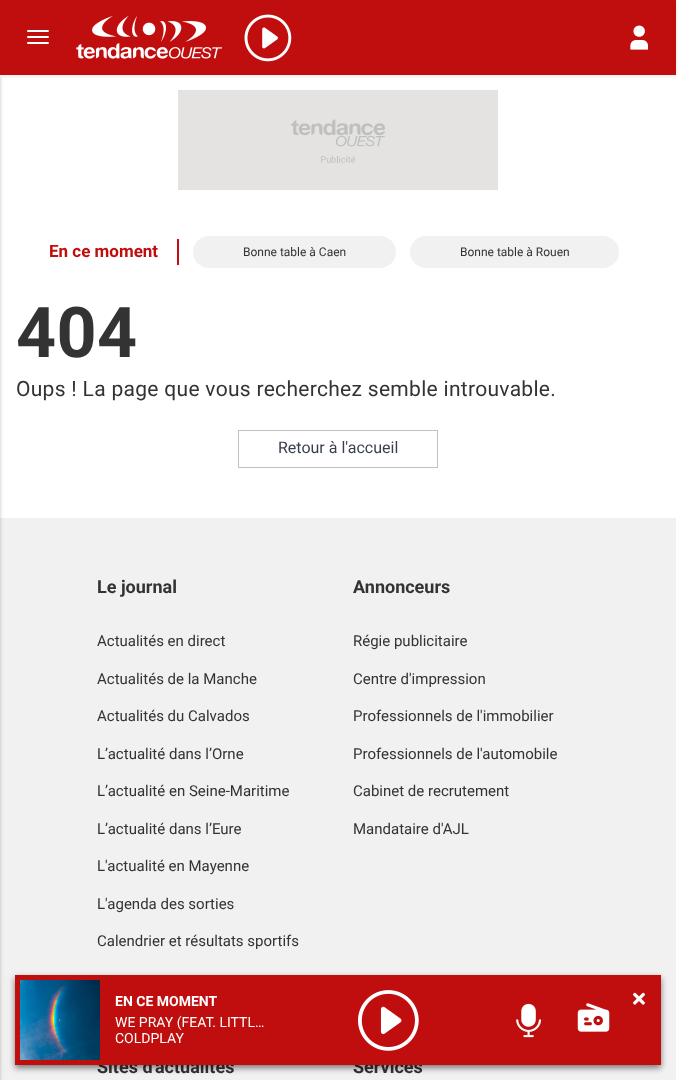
async function draw(canvas) {
  canvas.width = 691;
  canvas.height = 1080;
  const ctx = canvas.getContext('2d');
  ctx.miterLimit = 4;
  ctx.fontKerning = 'normal';
  function label(s, x, y, font, color) {
    ctx.font = font;
    ctx.fillStyle = color;
    ctx.fillText(s, x, y);
  }
  function rect(x, y, w, h, color) {
    ctx.fillStyle = color;
    ctx.fillRect(x, y, w, h);
  }
  function roundedRect(x, y, w, h, r, color) {
    ctx.fillStyle = color;
    ctx.beginPath();
    ctx.roundRect(x, y, w, h, r);
    ctx.fill();
  }
  async function image(src, x, y, w, h) {
    const img = new Image();
    img.src = src;
    await img.decode();
    ctx.drawImage(img, x, y, w, h);
  }

  rect(0, 0, 691, 1080, '#fff');
  ctx.fillStyle = '#0000001a';
  ctx.filter = 'blur(2px)';
  ctx.beginPath();
  ctx.rect(0, 1, 676, 75);
  ctx.fill();
  ctx.filter = 'none';
  rect(0, 0, 676, 75, '#c00d0d');
  roundedRect(27, 30, 22, 2, 1, '#fff');
  roundedRect(27, 36, 22, 2, 1, '#fff');
  roundedRect(27, 42, 22, 2, 1, '#fff');
  await image('assets/img1.png', 76, 15, 147, 44);
  await image('assets/img2.png', 244, 14, 48, 48);
  await image('assets/img3.png', 630, 25, 18, 25);
  rect(0, 518, 676, 562, '#f1f1f1');
  ctx.fillStyle = '#0000001f';
  ctx.filter = 'blur(2.5px)';
  ctx.beginPath();
  ctx.rect(-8, 76, 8, 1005);
  ctx.fill();
  ctx.filter = 'none';
  ctx.fillStyle = '#00000024';
  ctx.filter = 'blur(1px)';
  ctx.beginPath();
  ctx.rect(-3, 77, 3, 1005);
  ctx.fill();
  ctx.filter = 'none';
  rect(178, 90, 320, 100, '#e4e3e1');
  await image('assets/img4.png', 291, 119, 94, 44);
  label('En ce moment', 49, 257, 'bold 17px Roboto', '#c00d0d');
  rect(177, 239, 2, 26, '#c00d0d');
  roundedRect(193, 236, 203, 32, 16, '#f1f1f1');
  label('Bonne table à Caen', 243, 256, '12px Roboto', '#333');
  roundedRect(410, 236, 209, 32, 16, '#f1f1f1');
  label('Bonne table à Rouen', 460, 256, '12px Roboto', '#333');
  ctx.letterSpacing = '0.3px';
  label('404', 16, 357, 'bold 70px Roboto', '#333');
  label('Oups ! La page que vous recherchez semble introuvable.', 16, 396, '21px Roboto', '#333');
  ctx.strokeStyle = '#bdc1c8';
  ctx.strokeRect(238.5, 430.5, 199, 37);
  ctx.letterSpacing = '0px';
  label('Retour à l\'accueil', 278, 453, '16px Roboto', '#383f4e');
  label('Le journal', 97, 593, 'bold 18px Roboto', '#333');
  label('Actualités en direct', 97, 646, '15px Roboto', '#333');
  label('Actualités de la Manche', 97, 684, '15px Roboto', '#333');
  label('Actualités du Calvados', 97, 721, '15px Roboto', '#333');
  label('L’actualité dans l’Orne', 97, 759, '15px Roboto', '#333');
  label('L’actualité en Seine-Maritime', 97, 796, '15px Roboto', '#333');
  label('L’actualité dans l’Eure', 97, 834, '15px Roboto', '#333');
  label('L\'actualité en Mayenne', 97, 871, '15px Roboto', '#333');
  label('L\'agenda des sorties', 97, 909, '15px Roboto', '#333');
  label('Calendrier et résultats sportifs', 97, 946, '15px Roboto', '#333');
  label('Annonceurs', 353, 593, 'bold 18px Roboto', '#333');
  label('Régie publicitaire', 353, 646, '15px Roboto', '#333');
  label('Centre d\'impression', 353, 684, '15px Roboto', '#333');
  label('Professionnels de l\'immobilier', 353, 721, '15px Roboto', '#333');
  label('Professionnels de l\'automobile', 353, 759, '15px Roboto', '#333');
  label('Cabinet de recrutement', 353, 796, '15px Roboto', '#333');
  label('Mandataire d\'AJL', 353, 834, '15px Roboto', '#333');
  label('Sites d\'actualités', 97, 1073, 'bold 18px Roboto', '#333');
  label('Services', 353, 1073, 'bold 18px Roboto', '#333');
  ctx.fillStyle = '#00000080';
  ctx.filter = 'blur(3px)';
  ctx.beginPath();
  ctx.rect(15, 978, 646, 90);
  ctx.fill();
  ctx.filter = 'none';
  rect(15, 975, 646, 90, '#c00d0d');
  await image('assets/img5.png', 20, 980, 80, 80);
  label('EN CE MOMENT', 115, 1006, 'bold 14px Roboto', '#fff');
  label('WE PRAY (FEAT. LITTL…', 115, 1027, '14px Roboto', '#fff');
  label('COLDPLAY', 115, 1043, '14px Roboto', '#fff');
  await image('assets/img6.png', 358, 990, 61, 61);
  await image('assets/img7.png', 516, 1003, 26, 35);
  await image('assets/img8.png', 577, 1003, 33, 29);
  await image('assets/img9.png', 633, 992, 12, 13);
}

draw(document.querySelector('canvas'));
